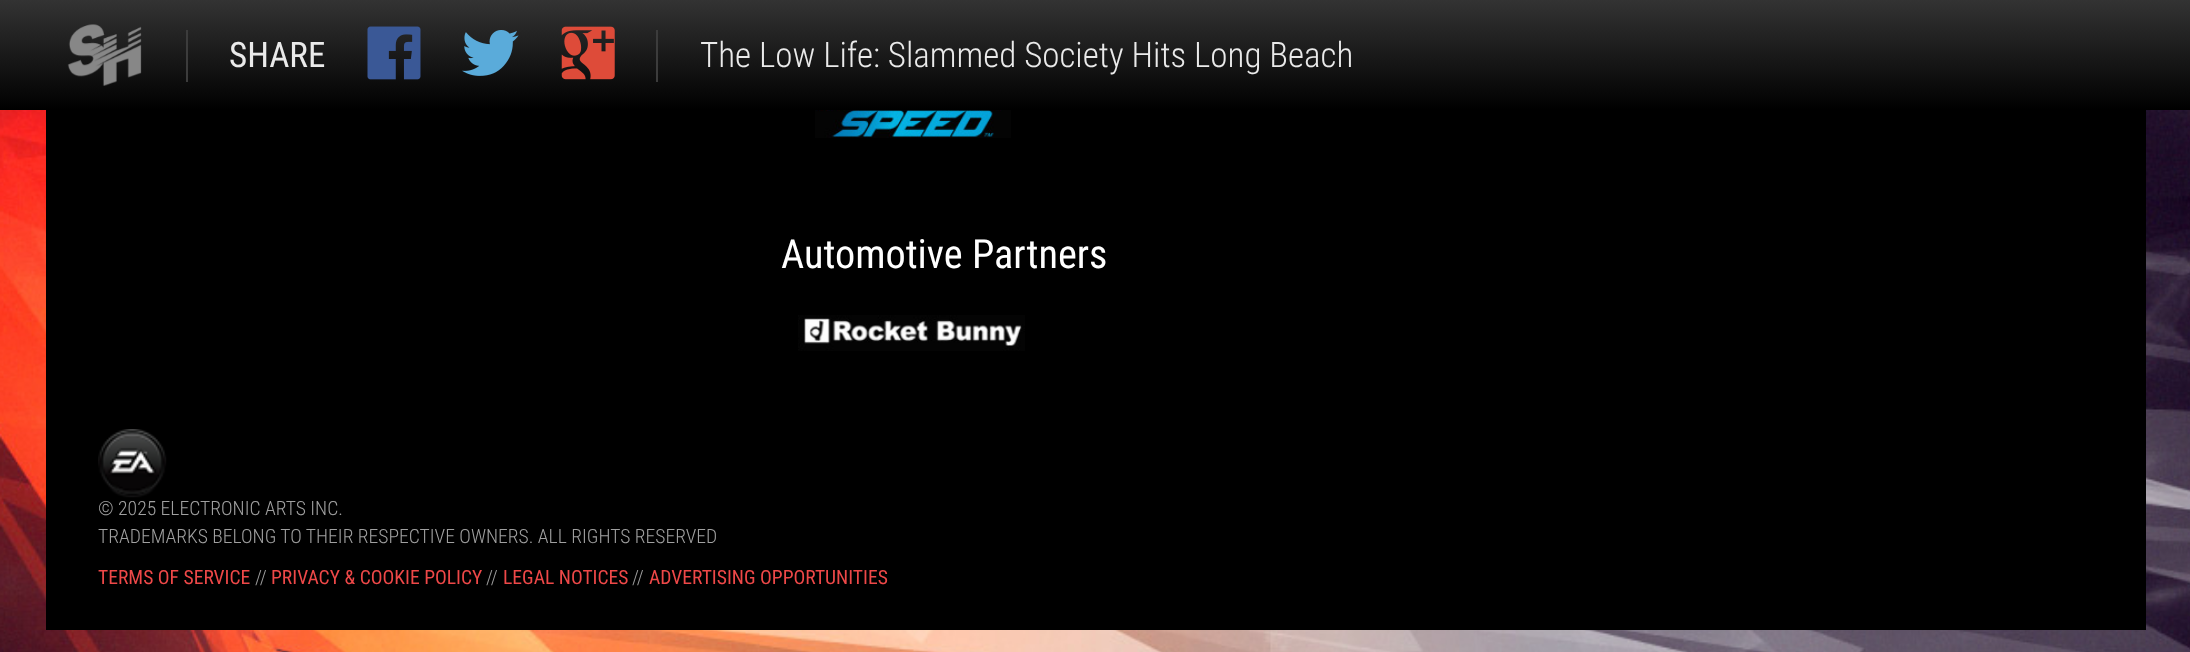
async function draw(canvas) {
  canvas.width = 2190;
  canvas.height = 652;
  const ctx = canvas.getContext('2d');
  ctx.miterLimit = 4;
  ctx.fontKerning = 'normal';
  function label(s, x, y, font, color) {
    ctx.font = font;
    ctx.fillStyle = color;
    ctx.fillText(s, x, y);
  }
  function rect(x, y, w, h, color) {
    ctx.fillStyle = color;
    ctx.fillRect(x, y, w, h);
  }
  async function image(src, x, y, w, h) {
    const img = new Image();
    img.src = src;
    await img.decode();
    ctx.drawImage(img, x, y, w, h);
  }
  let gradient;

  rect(0, 0, 2190, 652, '#fff');
  await image('assets/img1.png', 0, 110, 2190, 542);
  gradient = ctx.createLinearGradient(1096, 0, 1096, 110);
  gradient.addColorStop(0, '#333');
  gradient.addColorStop(1, '#000');
  ctx.fillStyle = gradient;
  ctx.fillRect(0, 0, 2190, 110);
  await image('assets/img2.png', 67, 24, 75, 62);
  rect(186, 30, 2, 52, '#3c3c3c');
  label('SHARE', 229, 67, '35px Roboto Condensed', '#eaeaea');
  await image('assets/img3.png', 367, 26, 54, 54);
  await image('assets/img4.png', 462, 30, 57, 46);
  await image('assets/img5.png', 561, 26, 54, 54);
  rect(656, 30, 2, 52, '#3c3c3c');
  label('The Low Life: Slammed Society Hits Long Beach', 700, 67, '300 35px Roboto Condensed', '#eaeaea');
  rect(46, 110, 2100, 520, '#000');
  await image('assets/img6.png', 815, 110, 196, 28);
  label('Automotive Partners', 781, 268, '40.25px Roboto Condensed', '#fff');
  await image('assets/img7.png', 798, 315, 227, 36);
  await image('assets/img8.png', 98, 429, 69, 69);
  label('© 2025 ELECTRONIC ARTS INC.', 98, 515, '300 19.6px Roboto Condensed', '#a0a0a0');
  label('TRADEMARKS BELONG TO THEIR RESPECTIVE OWNERS. ALL RIGHTS RESERVED', 98, 543, '300 19.6px Roboto Condensed', '#a0a0a0');
  label('TERMS OF SERVICE', 98, 584, '19.6px Roboto Condensed', '#ee4848');
  label('//', 255, 584, '300 19.6px Roboto Condensed', '#a0a0a0');
  label('PRIVACY & COOKIE POLICY', 271, 584, '19.6px Roboto Condensed', '#ee4848');
  label('//', 486, 584, '300 19.6px Roboto Condensed', '#a0a0a0');
  label('LEGAL NOTICES', 503, 584, '19.6px Roboto Condensed', '#ee4848');
  label('//', 632, 584, '300 19.6px Roboto Condensed', '#a0a0a0');
  label('ADVERTISING OPPORTUNITIES', 649, 584, '19.6px Roboto Condensed', '#ee4848');
}

draw(document.querySelector('canvas'));
